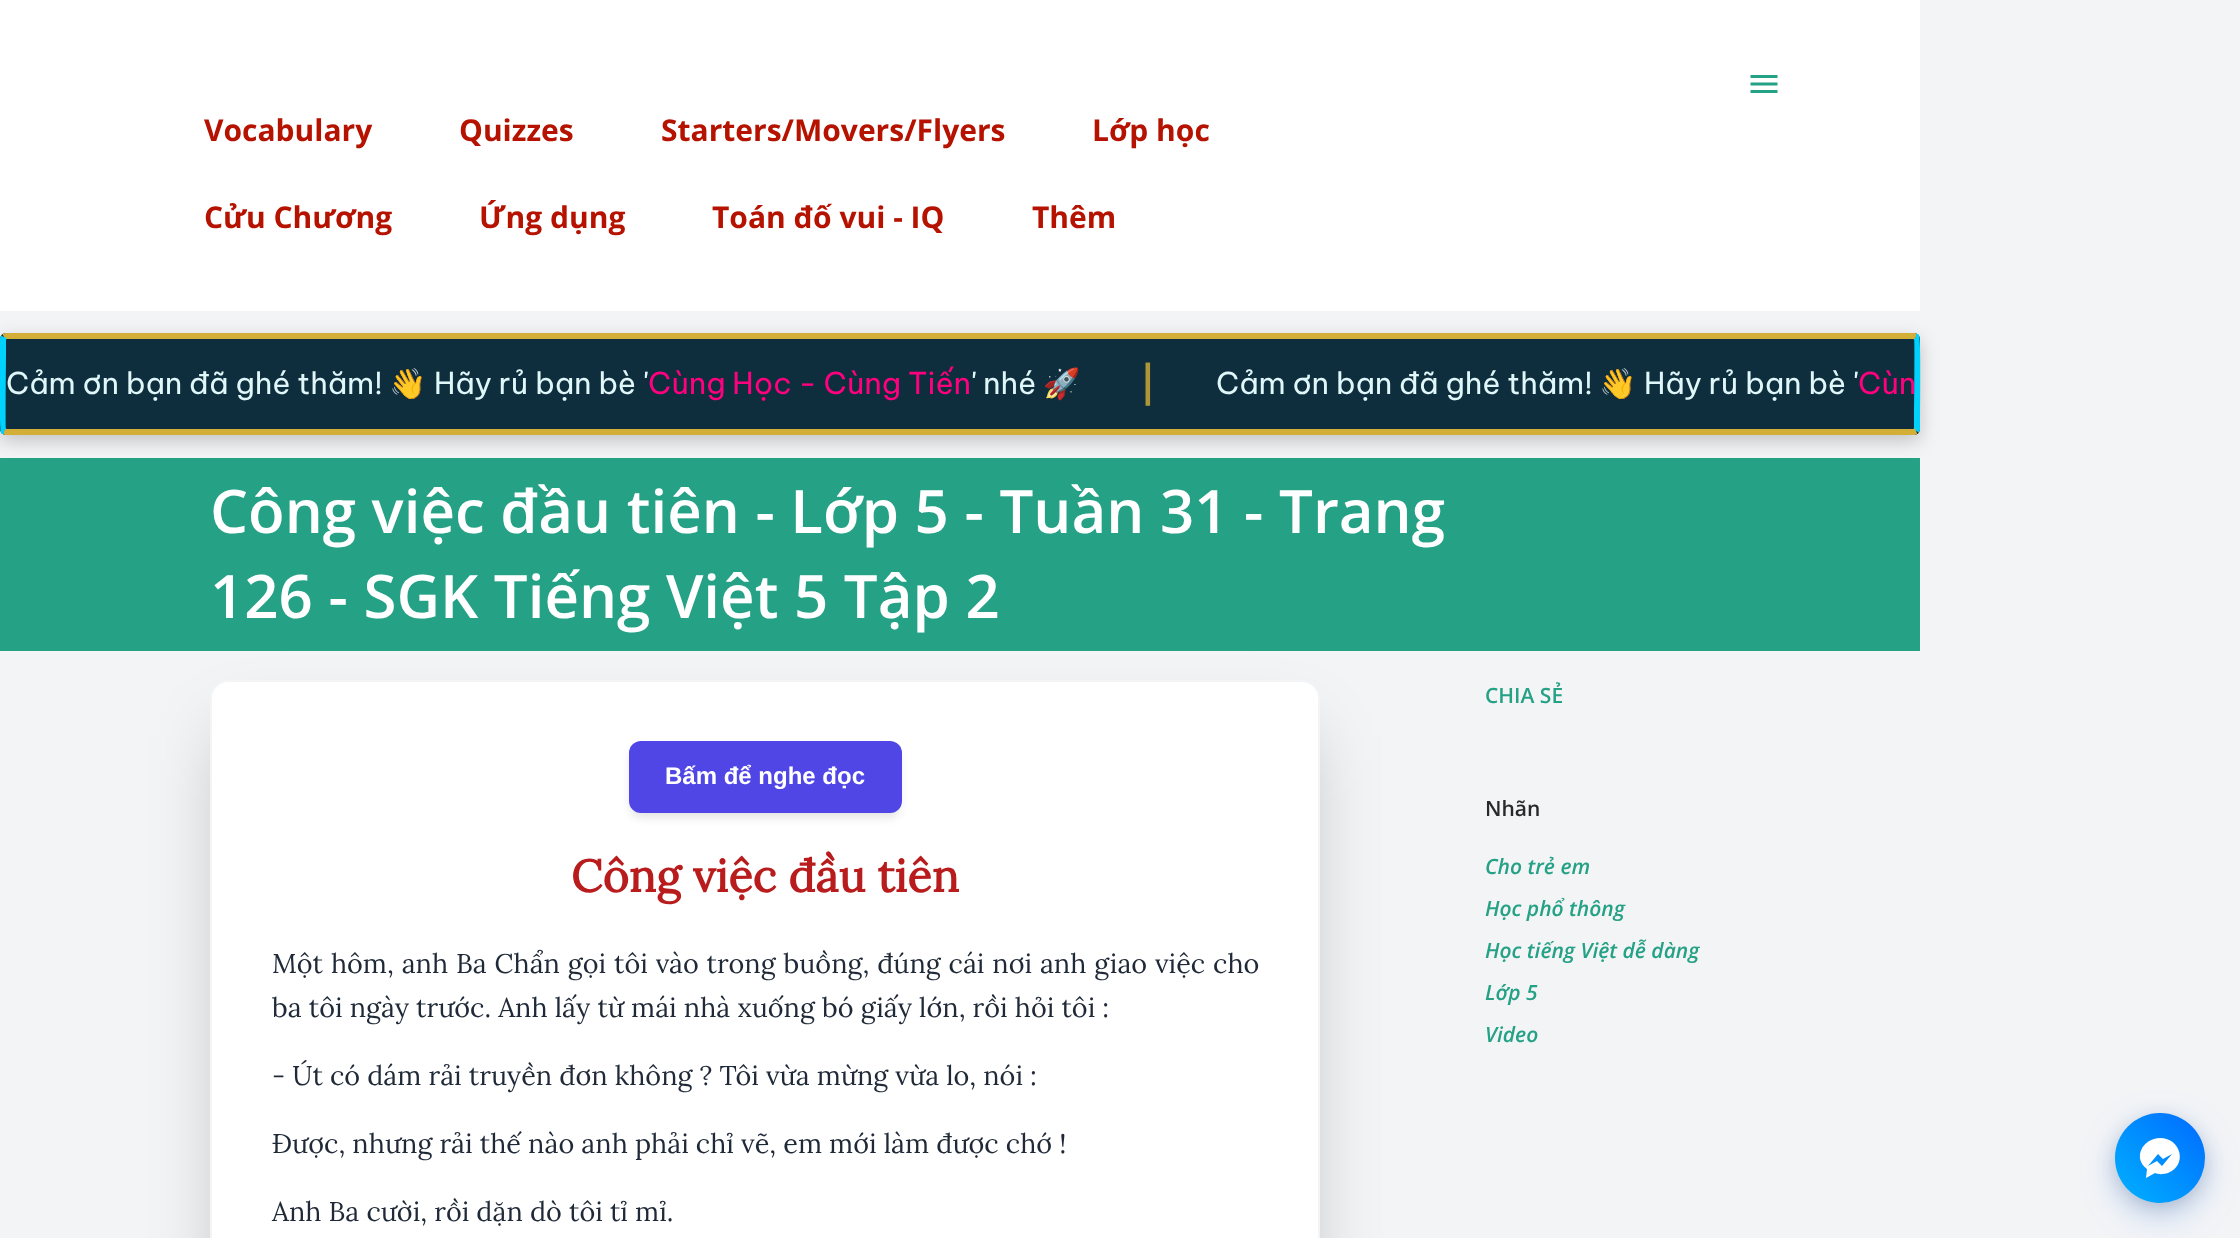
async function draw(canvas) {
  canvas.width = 2240;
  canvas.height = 1238;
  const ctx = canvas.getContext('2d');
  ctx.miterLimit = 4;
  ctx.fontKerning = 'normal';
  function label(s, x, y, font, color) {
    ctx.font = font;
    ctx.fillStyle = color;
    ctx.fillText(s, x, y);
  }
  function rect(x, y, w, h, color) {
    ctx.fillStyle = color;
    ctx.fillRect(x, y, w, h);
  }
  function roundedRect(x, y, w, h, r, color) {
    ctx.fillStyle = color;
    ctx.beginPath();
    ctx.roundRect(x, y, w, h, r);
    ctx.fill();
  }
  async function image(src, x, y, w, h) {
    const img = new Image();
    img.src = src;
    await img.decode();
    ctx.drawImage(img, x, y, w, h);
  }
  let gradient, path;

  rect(0, 0, 2240, 1238, '#f3f4f6');
  rect(0, 0, 1920, 311, '#fff');
  await image('assets/img1.png', 1750, 75, 28, 18);
  label('Vocabulary', 204, 141, 'bold 30px Open Sans', '#b51200');
  label('Quizzes', 459, 141, 'bold 30px Open Sans', '#b51200');
  label('Starters/Movers/Flyers', 661, 141, 'bold 30px Open Sans', '#b51200');
  label('Lớp học', 1092, 141, 'bold 30px Open Sans', '#b51200');
  label('Cửu Chương', 204, 228, 'bold 30px Open Sans', '#b51200');
  label('Ứng dụng', 479, 228, 'bold 30px Open Sans', '#b51200');
  label('Toán đố vui - IQ', 712, 228, 'bold 30px Open Sans', '#b51200');
  label('Thêm', 1032, 228, 'bold 30px Open Sans', '#b51200');
  rect(0, 458, 1920, 193, '#25a186');
  ctx.fillStyle = '#00000033';
  ctx.filter = 'blur(9px)';
  ctx.beginPath();
  ctx.roundRect(0, 339, 1920, 102, 6);
  ctx.fill();
  ctx.filter = 'none';
  roundedRect(0, 333, 1920, 102, 6, '#0f2e3d');
  path = new Path2D('M4 337L6 336H1914L1916 337');
  ctx.strokeStyle = '#d4af37';
  ctx.lineWidth = 6;
  ctx.stroke(path);
  path = new Path2D('M1916 337H1916.5C1918 339 1917 406 1917 414V429L1916 431');
  ctx.strokeStyle = '#00d2ff';
  ctx.stroke(path);
  path = new Path2D('M1916 431L1914 432H6L4 431');
  ctx.strokeStyle = '#d4af37';
  ctx.stroke(path);
  path = new Path2D('M4 431H3.5C2 429 3 362 3 354V339L4 337');
  ctx.strokeStyle = '#00d2ff';
  ctx.stroke(path);
  label('Cảm ơn bạn đã ghé thăm!', 6, 394, '30px Be Vietnam Pro', '#e0f7fa');
  label('👋', 389, 394, '30px Noto Color Emoji', '#e0f7fa');
  label('Hãy rủ bạn bè \'', 434, 394, '30px Be Vietnam Pro', '#e0f7fa');
  label('Cùng Học - Cùng Tiến', 648, 394, '30px Be Vietnam Pro', '#ff007f');
  label('\' nhé', 971, 394, '30px Be Vietnam Pro', '#e0f7fa');
  label('🚀', 1043, 394, '30px Noto Color Emoji', '#e0f7fa');
  label('|', 1140, 397, 'bold 36px Be Vietnam Pro', '#ad9538');
  label('Cảm ơn bạn đã ghé thăm!', 1216, 394, '30px Be Vietnam Pro', '#e0f7fa');
  label('👋', 1599, 394, '30px Noto Color Emoji', '#e0f7fa');
  label('Hãy rủ bạn bè \'', 1644, 394, '30px Be Vietnam Pro', '#e0f7fa');
  ctx.save();
  ctx.beginPath();
  ctx.rect(6, 339, 1908, 90);
  ctx.clip();
  label('Cùn', 1858, 394, '30px Be Vietnam Pro', '#ff007f');
  ctx.restore();
  label('Công việc đầu tiên - Lớp 5 - Tuần 31 - Trang', 210, 533, '600 60px Open Sans', '#fff');
  label('126 - SGK Tiếng Việt 5 Tập 2', 210, 618, '600 60px Open Sans', '#fff');
  ctx.fillStyle = '#00000040';
  ctx.filter = 'blur(37.5px)';
  ctx.beginPath();
  ctx.rect(228, 735, 1074, 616);
  ctx.fill();
  ctx.filter = 'none';
  ctx.fillStyle = '#fff';
  ctx.beginPath();
  ctx.roundRect(211, 681, 1108, 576, 17);
  ctx.fill();
  ctx.strokeStyle = '#f3f4f6';
  ctx.lineWidth = 2;
  ctx.stroke();
  ctx.fillStyle = '#0000001a';
  ctx.filter = 'blur(4.5px)';
  ctx.beginPath();
  ctx.roundRect(630, 749, 270, 69, 11);
  ctx.fill();
  ctx.filter = 'none';
  roundedRect(629, 741, 273, 72, 12, '#4f46e5');
  label('Bấm để nghe đọc', 665, 784, 'bold 24px Liberation Sans', '#fff');
  label('Công việc đầu tiên', 571, 892, 'bold 45px Lora', '#b91c1c');
  ctx.wordSpacing = '0.75px';
  label('Một hôm, anh Ba Chẩn gọi tôi vào trong buồng, đúng cái nơi anh giao việc cho', 272, 973, '27px Lora', '#1f2937');
  ctx.wordSpacing = '0px';
  label('ba tôi ngày trước. Anh lấy từ mái nhà xuống bó giấy lớn, rồi hỏi tôi :', 272, 1017, '27px Lora', '#1f2937');
  label('- Út có dám rải truyền đơn không ? Tôi vừa mừng vừa lo, nói :', 272, 1085, '27px Lora', '#1f2937');
  label('Được, nhưng rải thế nào anh phải chỉ vẽ, em mới làm được chớ !', 272, 1153, '27px Lora', '#1f2937');
  label('Anh Ba cười, rồi dặn dò tôi tỉ mỉ.', 272, 1221, '27px Lora', '#1f2937');
  label('CHIA SẺ', 1485, 703, '600 21px Open Sans', '#25a186');
  label('Nhãn', 1485, 816, '600 21px Open Sans', '#292929');
  label('Cho trẻ em', 1485, 874, 'italic 600 21px Open Sans', '#25a186');
  label('Học phổ thông', 1485, 916, 'italic 600 21px Open Sans', '#25a186');
  label('Học tiếng Việt dễ dàng', 1485, 958, 'italic 600 21px Open Sans', '#25a186');
  label('Lớp 5', 1485, 1000, 'italic 600 21px Open Sans', '#25a186');
  label('Video', 1485, 1042, 'italic 600 21px Open Sans', '#25a186');
  ctx.fillStyle = '#006aff33';
  ctx.filter = 'blur(18px)';
  ctx.beginPath();
  ctx.roundRect(2115, 1125, 90, 90, 45);
  ctx.fill();
  ctx.filter = 'none';
  ctx.fillStyle = '#00000026';
  ctx.filter = 'blur(9px)';
  ctx.beginPath();
  ctx.roundRect(2115, 1119, 90, 90, 45);
  ctx.fill();
  ctx.filter = 'none';
  gradient = ctx.createLinearGradient(2115, 1203, 2205, 1113);
  gradient.addColorStop(0, '#00b2ff');
  gradient.addColorStop(1, '#006aff');
  ctx.fillStyle = gradient;
  ctx.beginPath();
  ctx.arc(2160, 1158, 45, 0, 2 * Math.PI);
  ctx.fill();
  ctx.fillStyle = '#fff';
  path = new Path2D('M2160 1138C2143 1138 2132 1158 2147 1169L2146 1178L2155 1173C2159 1175 2164 1174 2168 1173C2188 1165 2181 1138 2160 1138ZM2162 1166L2157 1161L2148 1166L2158 1154L2163 1159L2172 1154Z');
  ctx.fill(path);
}

draw(document.querySelector('canvas'));
